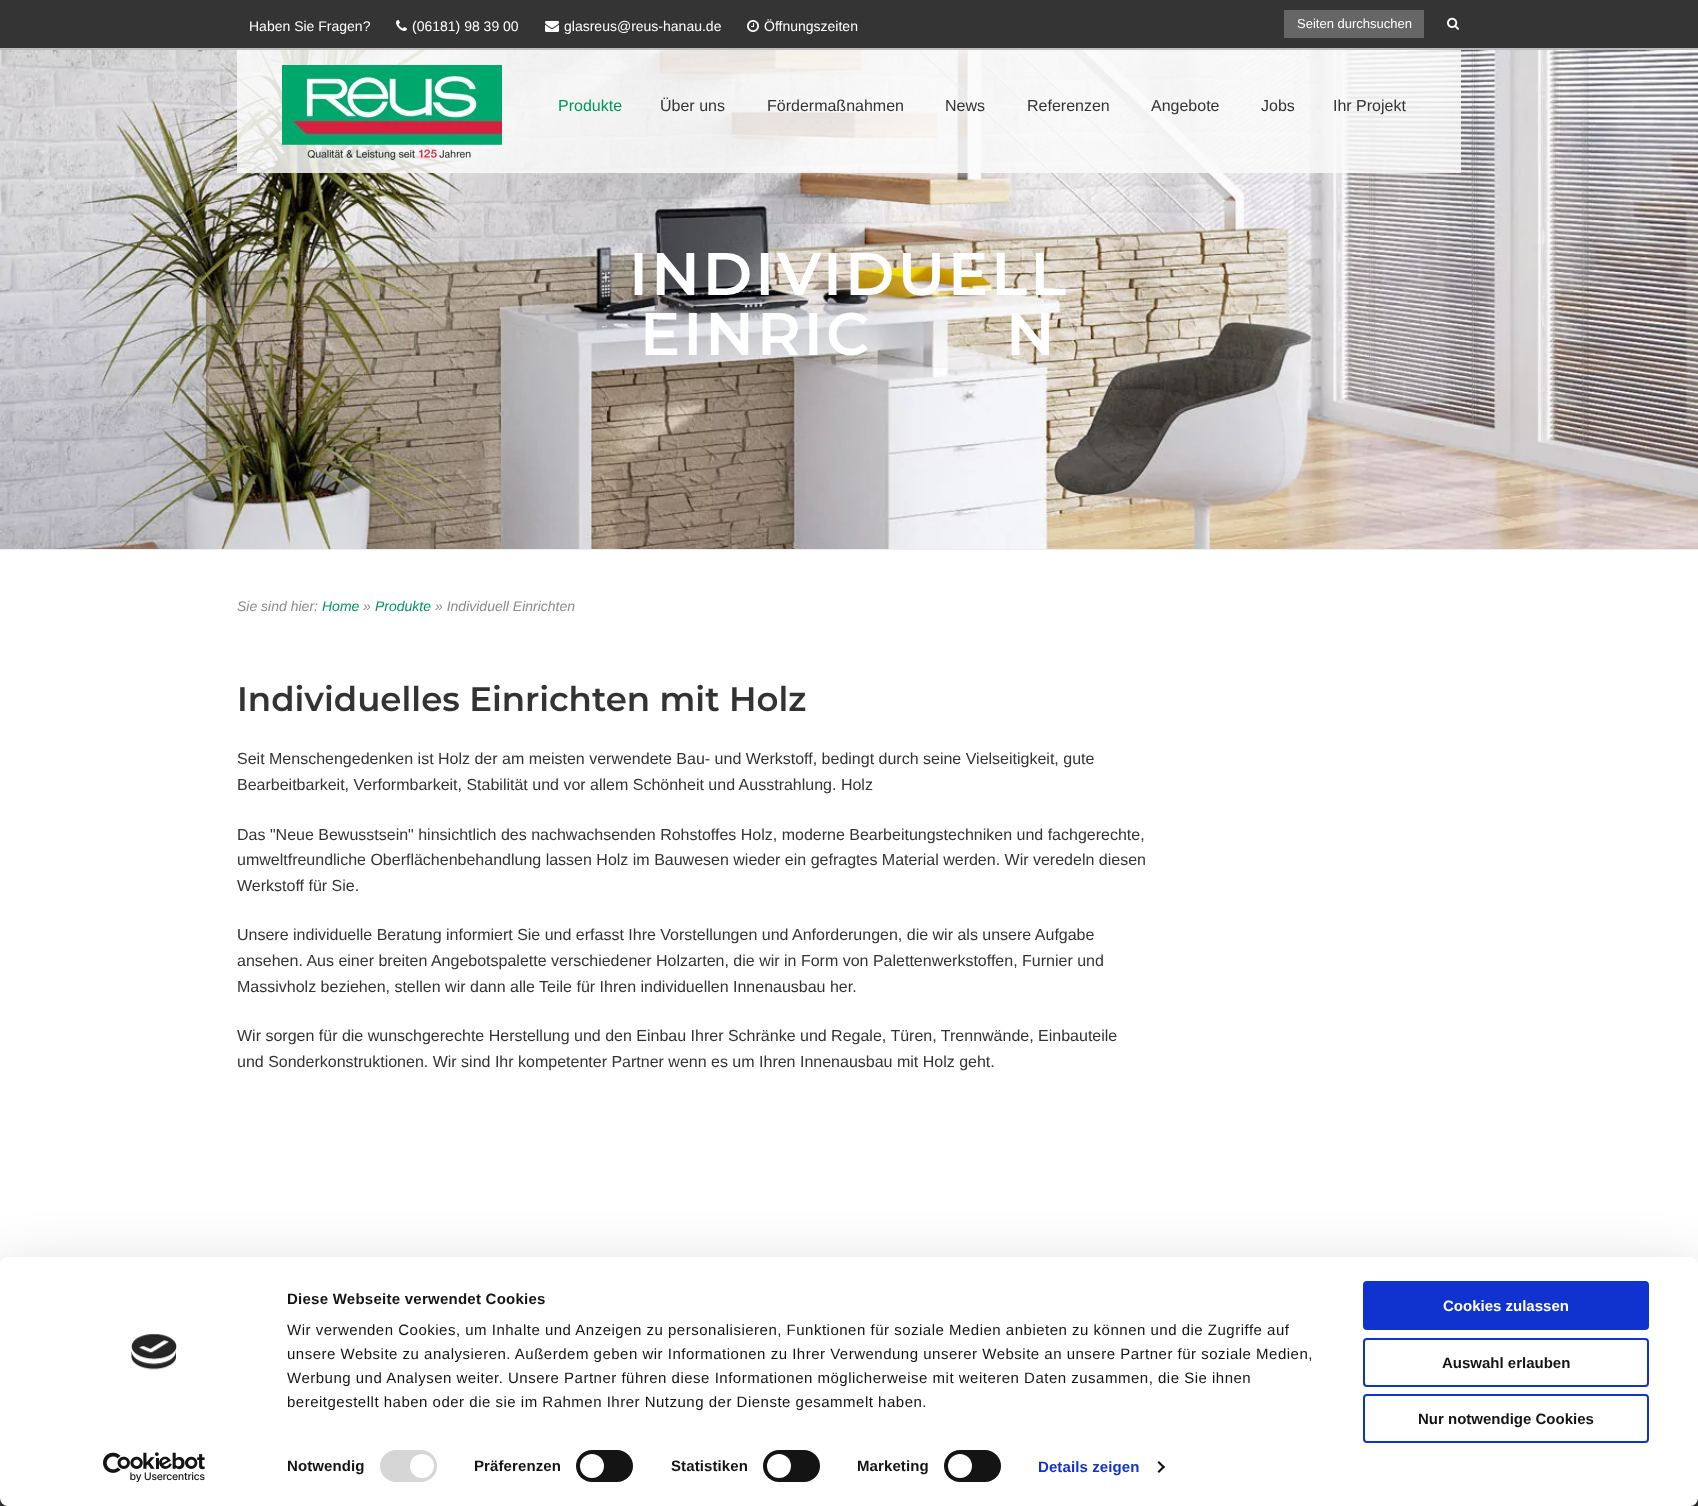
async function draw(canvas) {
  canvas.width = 1698;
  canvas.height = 1506;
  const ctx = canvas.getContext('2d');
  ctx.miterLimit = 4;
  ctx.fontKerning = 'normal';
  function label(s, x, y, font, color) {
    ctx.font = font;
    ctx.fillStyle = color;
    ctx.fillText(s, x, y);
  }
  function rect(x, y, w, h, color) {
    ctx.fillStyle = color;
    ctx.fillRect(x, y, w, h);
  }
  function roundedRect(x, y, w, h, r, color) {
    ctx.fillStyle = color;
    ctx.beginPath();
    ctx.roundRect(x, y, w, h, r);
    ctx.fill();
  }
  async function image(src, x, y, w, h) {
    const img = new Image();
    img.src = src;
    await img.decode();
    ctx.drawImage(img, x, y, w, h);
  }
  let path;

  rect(0, 0, 1698, 1506, '#fff');
  rect(0, 0, 1698, 48, '#343434');
  rect(0, 48, 1698, 2, '#bdbcbd');
  label('Haben Sie Fragen?', 249, 31, '14px Liberation Sans', '#fff');
  await image('assets/img1.png', 396, 20, 11, 11);
  label('(06181) 98 39 00', 412, 31, '14px Liberation Sans', '#fff');
  await image('assets/img2.png', 545, 21, 14, 11);
  label('glasreus@reus-hanau.de', 564, 31, '14px Liberation Sans', '#fff');
  await image('assets/img3.png', 747, 20, 12, 12);
  label('Öffnungszeiten', 764, 31, '14px Liberation Sans', '#fff');
  rect(1284, 10, 140, 28, '#666');
  label('Seiten durchsuchen', 1297, 28, '13px Liberation Sans', '#fff');
  await image('assets/img4.png', 1447, 17, 12, 13);
  await image('assets/img6.png', 0, 50, 1698, 499);
  rect(237, 50, 1224, 123, '#fafafad9');
  await image('assets/img5.png', 282, 65, 220, 95);
  label('Produkte', 558, 111, '16px Liberation Sans', '#00975f');
  label('Über uns', 660, 111, '16px Liberation Sans', '#333');
  label('Fördermaßnahmen', 767, 111, '16px Liberation Sans', '#333');
  label('News', 945, 111, '16px Liberation Sans', '#333');
  label('Referenzen', 1027, 111, '16px Liberation Sans', '#333');
  label('Angebote', 1151, 111, '16px Liberation Sans', '#333');
  label('Jobs', 1261, 111, '16px Liberation Sans', '#333');
  label('Ihr Projekt', 1333, 111, '16px Liberation Sans', '#333');
  rect(0, 549, 1698, 1, '#eee');
  ctx.letterSpacing = '3px';
  label('INDIVIDUELL', 629, 295, '100 60px Montserrat', '#fff');
  label('EINRIC', 640, 355, '100 60px Montserrat', '#fff');
  label('N', 1006, 355, '100 60px Montserrat', '#fff');
  ctx.letterSpacing = '0px';
  label('Sie sind hier:', 237, 611, 'italic 14px Liberation Sans', '#8b8b8b');
  label('Home', 322, 611, 'italic 14px Liberation Sans', '#00975f');
  label('»', 363, 611, 'italic 14px Liberation Sans', '#8b8b8b');
  label('Produkte', 375, 611, 'italic 14px Liberation Sans', '#00975f');
  label('» Individuell Einrichten', 435, 611, 'italic 14px Liberation Sans', '#8b8b8b');
  label('Individuelles Einrichten mit Holz', 237, 711, '100 34px Montserrat', '#333');
  label('Seit Menschengedenken ist Holz der am meisten verwendete Bau- und Werkstoff, bedingt durch seine Vielseitigkeit, gute', 237, 764, '16px Liberation Sans', '#333');
  label('Bearbeitbarkeit, Verformbarkeit, Stabilität und vor allem Schönheit und Ausstrahlung. Holz', 237, 790, '16px Liberation Sans', '#333');
  label('Das "Neue Bewusstsein" hinsichtlich des nachwachsenden Rohstoffes Holz, moderne Bearbeitungstechniken und fachgerechte,', 237, 840, '16px Liberation Sans', '#333');
  label('umweltfreundliche Oberflächenbehandlung lassen Holz im Bauwesen wieder ein gefragtes Material werden. Wir veredeln diesen', 237, 865, '16px Liberation Sans', '#333');
  label('Werkstoff für Sie.', 237, 891, '16px Liberation Sans', '#333');
  label('Unsere individuelle Beratung informiert Sie und erfasst Ihre Vorstellungen und Anforderungen, die wir als unsere Aufgabe', 237, 940, '16px Liberation Sans', '#333');
  label('ansehen. Aus einer breiten Angebotspalette verschiedener Holzarten, die wir in Form von Palettenwerkstoffen, Furnier und', 237, 966, '16px Liberation Sans', '#333');
  label('Massivholz beziehen, stellen wir dann alle Teile für Ihren individuellen Innenausbau her.', 237, 992, '16px Liberation Sans', '#333');
  label('Wir sorgen für die wunschgerechte Herstellung und den Einbau Ihrer Schränke und Regale, Türen, Trennwände, Einbauteile', 237, 1041, '16px Liberation Sans', '#333');
  label('und Sonderkonstruktionen. Wir sind Ihr kompetenter Partner wenn es um Ihren Innenausbau mit Holz geht.', 237, 1067, '16px Liberation Sans', '#333');
  rect(0, 1498, 1698, 8, '#343434');
  ctx.fillStyle = '#0000004d';
  ctx.filter = 'blur(35px)';
  ctx.beginPath();
  ctx.roundRect(0, 1287, 1698, 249, 8);
  ctx.fill();
  ctx.filter = 'none';
  roundedRect(0, 1257, 1698, 249, 8, '#fff');
  await image('assets/img7.png', 131, 1334, 46, 36);
  await image('assets/img8.png', 103, 1452, 102, 30);
  ctx.letterSpacing = '0.25px';
  label('Diese Webseite verwendet Cookies', 287, 1304, 'bold 15px Liberation Sans', '#141414');
  ctx.letterSpacing = '0.5px';
  label('Wir verwenden Cookies, um Inhalte und Anzeigen zu personalisieren, Funktionen für soziale Medien anbieten zu können und die Zugriffe auf', 287, 1335, '15px Liberation Sans', '#141414');
  label('unsere Website zu analysieren. Außerdem geben wir Informationen zu Ihrer Verwendung unserer Website an unsere Partner für soziale Medien,', 287, 1359, '15px Liberation Sans', '#141414');
  label('Werbung und Analysen weiter. Unsere Partner führen diese Informationen möglicherweise mit weiteren Daten zusammen, die Sie ihnen', 287, 1383, '15px Liberation Sans', '#141414');
  label('bereitgestellt haben oder die sie im Rahmen Ihrer Nutzung der Dienste gesammelt haben.', 287, 1407, '15px Liberation Sans', '#141414');
  ctx.letterSpacing = '0.1px';
  label('Notwendig', 287, 1471, 'bold 15px Liberation Sans', '#141414');
  roundedRect(380, 1450, 57, 32, 16, '#d6d6d6');
  ctx.fillStyle = '#fff';
  ctx.beginPath();
  ctx.arc(422, 1466, 12, 0, 2 * Math.PI);
  ctx.fill();
  label('Präferenzen', 474, 1471, 'bold 15px Liberation Sans', '#141414');
  roundedRect(576, 1450, 57, 32, 16, '#141414');
  ctx.fillStyle = '#fff';
  ctx.beginPath();
  ctx.arc(592, 1466, 12, 0, 2 * Math.PI);
  ctx.fill();
  label('Statistiken', 671, 1471, 'bold 15px Liberation Sans', '#141414');
  roundedRect(763, 1450, 57, 32, 16, '#141414');
  ctx.fillStyle = '#fff';
  ctx.beginPath();
  ctx.arc(779, 1466, 12, 0, 2 * Math.PI);
  ctx.fill();
  label('Marketing', 857, 1471, 'bold 15px Liberation Sans', '#141414');
  roundedRect(944, 1450, 57, 32, 16, '#141414');
  ctx.fillStyle = '#fff';
  ctx.beginPath();
  ctx.arc(960, 1466, 12, 0, 2 * Math.PI);
  ctx.fill();
  label('Details zeigen', 1038, 1472, 'bold 15px Liberation Sans', '#1032cf');
  ctx.fillStyle = '#141414';
  path = new Path2D('M1159 1461L1165 1467L1163.5 1468.5L1157.5 1462.5Z');
  ctx.fill(path);
  path = new Path2D('M1163.5 1465.5L1165 1467L1159 1473L1157.5 1471.5Z');
  ctx.fill(path);
  ctx.fillStyle = '#1032cf';
  ctx.beginPath();
  ctx.roundRect(1364, 1282, 284, 47, 3);
  ctx.fill();
  ctx.strokeStyle = '#1032cf';
  ctx.lineWidth = 2;
  ctx.stroke();
  ctx.letterSpacing = '0px';
  label('Cookies zulassen', 1443, 1311, 'bold 15px Liberation Sans', '#fff');
  ctx.beginPath();
  ctx.roundRect(1364, 1339, 284, 47, 3);
  ctx.stroke();
  label('Auswahl erlauben', 1442, 1368, 'bold 15px Liberation Sans', '#141414');
  ctx.beginPath();
  ctx.roundRect(1364, 1395, 284, 47, 3);
  ctx.stroke();
  label('Nur notwendige Cookies', 1418, 1424, 'bold 15px Liberation Sans', '#141414');
}

draw(document.querySelector('canvas'));
